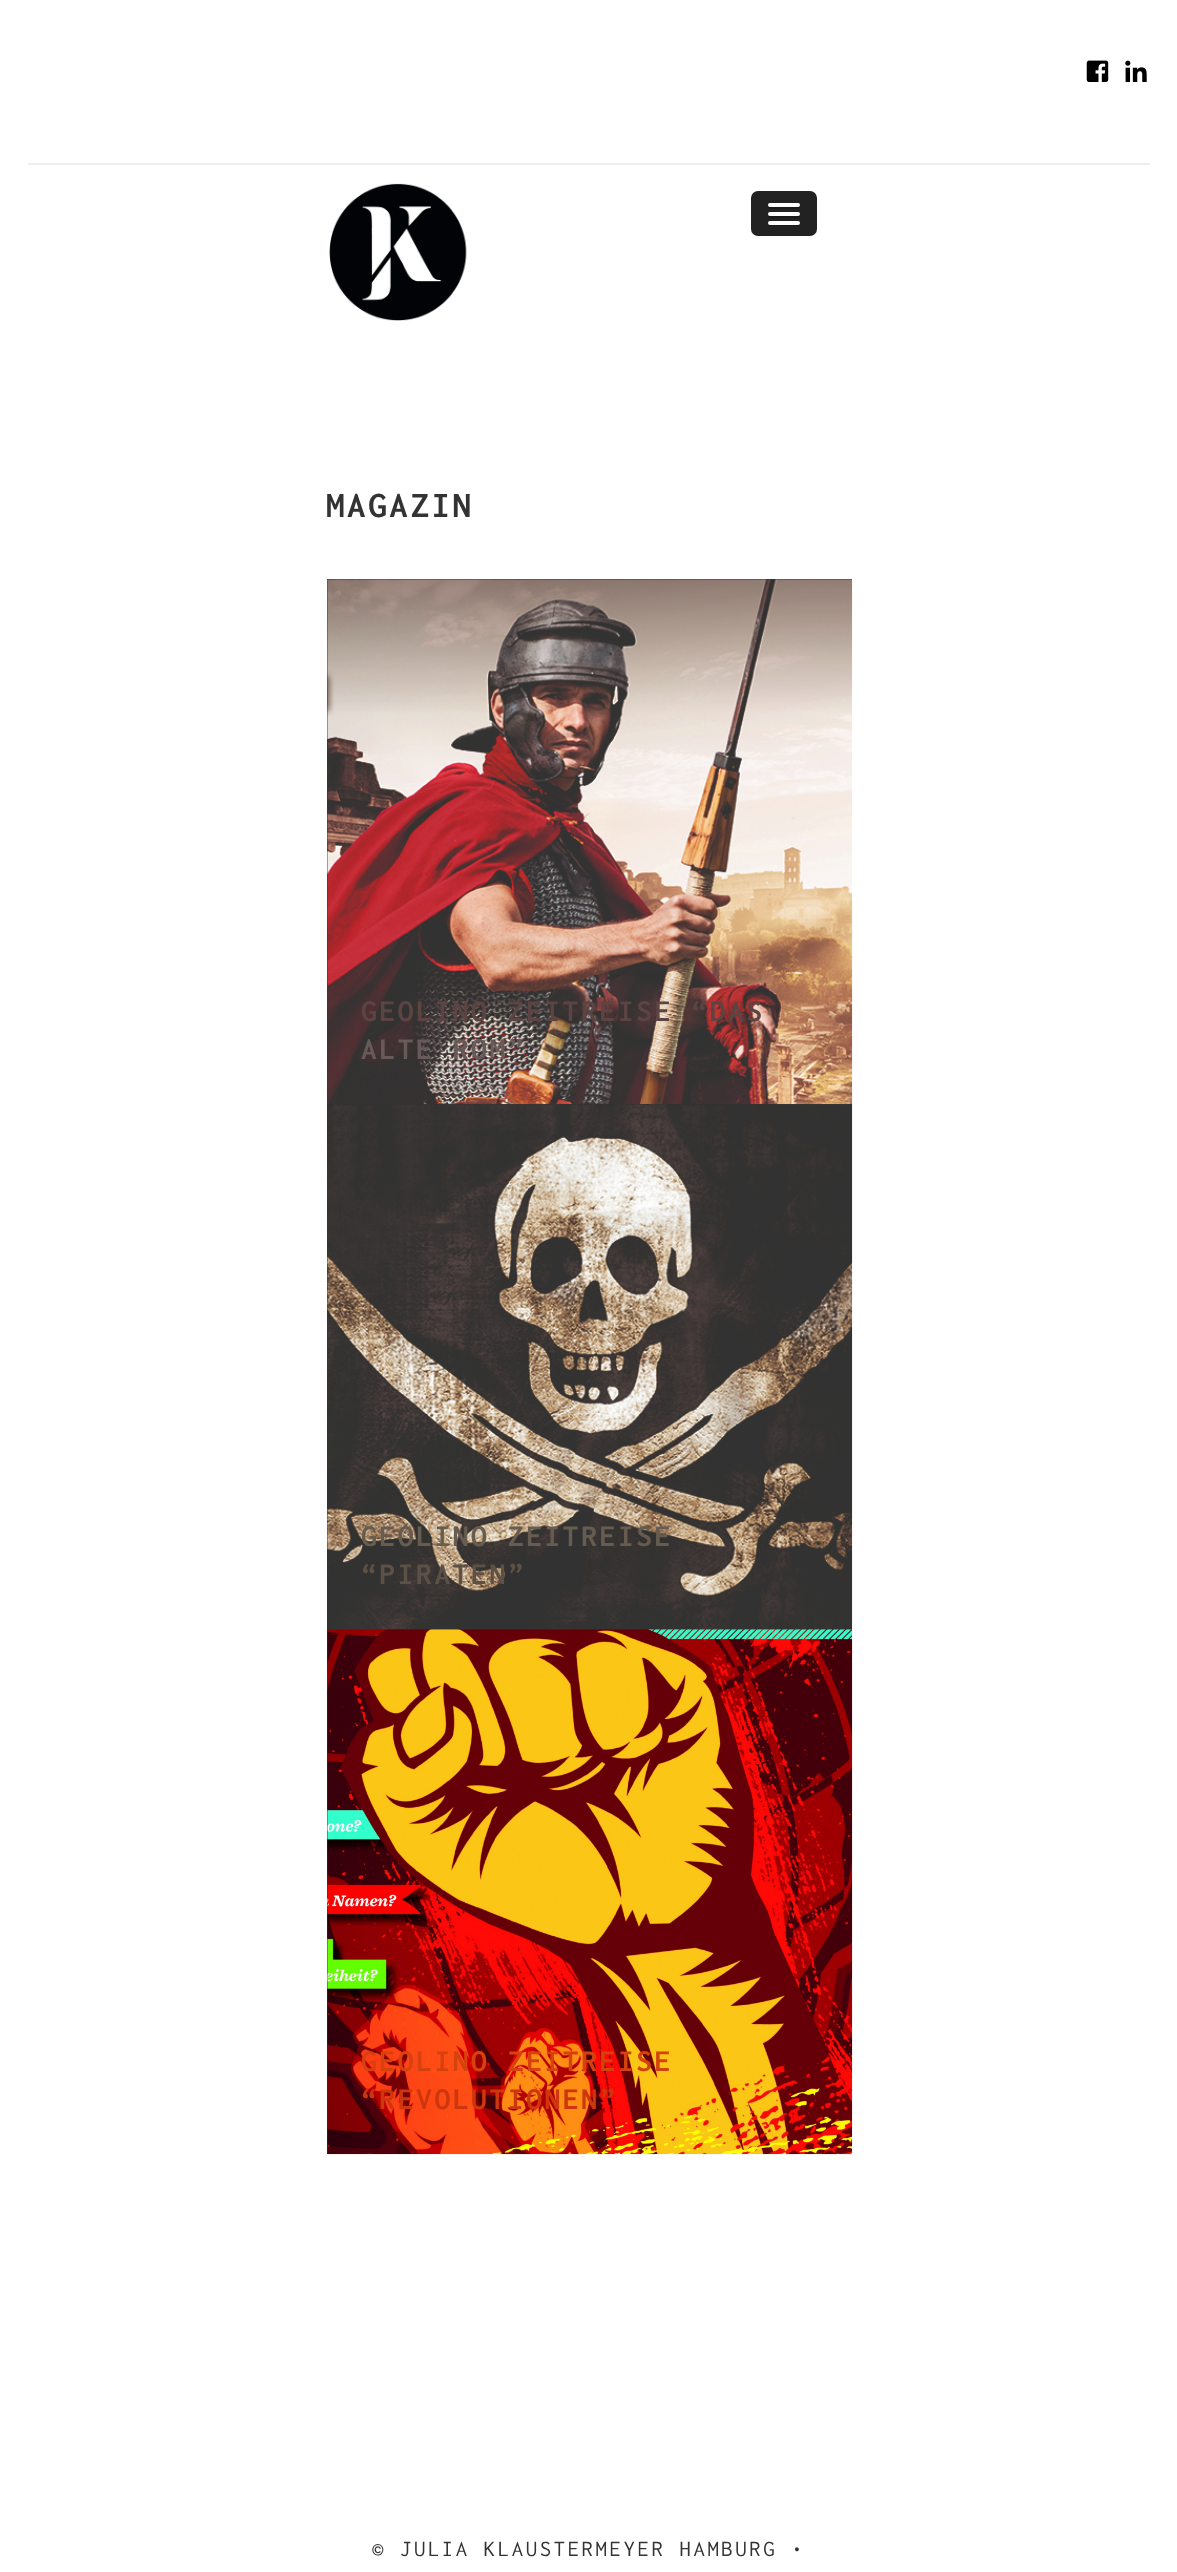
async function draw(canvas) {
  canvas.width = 1177;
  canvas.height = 2572;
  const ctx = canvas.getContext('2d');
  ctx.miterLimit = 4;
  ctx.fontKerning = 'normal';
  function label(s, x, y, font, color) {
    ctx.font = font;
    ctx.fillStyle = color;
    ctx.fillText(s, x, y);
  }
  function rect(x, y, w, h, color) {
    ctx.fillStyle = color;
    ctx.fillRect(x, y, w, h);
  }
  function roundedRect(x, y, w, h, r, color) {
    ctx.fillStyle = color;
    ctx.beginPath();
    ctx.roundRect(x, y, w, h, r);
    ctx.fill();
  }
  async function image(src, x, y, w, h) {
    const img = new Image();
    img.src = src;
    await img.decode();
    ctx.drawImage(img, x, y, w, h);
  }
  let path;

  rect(0, 0, 1177, 2572, '#fff');
  await image('assets/img1.png', 1086, 60, 23, 22);
  await image('assets/img2.png', 1125, 60, 22, 22);
  rect(28, 163, 1122, 2, '#eee');
  await image('assets/img3.png', 329, 183, 138, 138);
  roundedRect(751, 191, 66, 45, 7, '#222');
  ctx.fillStyle = '#1a1a1a';
  path = new Path2D('M768.5 205.5C767.5 207 768 208.5 769.5 209H798.5C800 208.5 800.5 207 799.5 205.5L798 206.5H770Z');
  ctx.fill(path);
  roundedRect(768, 203, 32, 4, 2, '#fff');
  ctx.fillStyle = '#1a1a1a';
  path = new Path2D('M768.5 214.5C767.5 215.5 768 217 769 217.5C770 218.5 794.5 218 798 218C800 218 800.5 216 799.5 214.5L798 215H770Z');
  ctx.fill(path);
  roundedRect(768, 212, 32, 4, 2, '#fff');
  ctx.fillStyle = '#1a1a1a';
  path = new Path2D('M768.5 223L768 224.5C768.5 227 773.5 226 774.5 226H793.5C794.5 226 799.5 227 800 224.5L799.5 223C799.5 223.5 799 224 798 224H770C769 224 768.5 223.5 768.5 223Z');
  ctx.fill(path);
  roundedRect(768, 221, 32, 4, 2, '#fff');
  ctx.letterSpacing = '2.6px';
  label('MAGAZIN', 326, 517, 'bold 37px Inconsolata', '#333');
  rect(327, 579, 525, 1575, '#333');
  await image('assets/img4.png', 327, 579, 526, 526);
  label('GEOLINO ZEITREISE “DAS', 361, 1021, 'bold 31.5px Inconsolata', '#5c4442');
  label('ALTE ROM”', 361, 1059, 'bold 31.5px Inconsolata', '#685a59');
  await image('assets/img5.png', 327, 1104, 526, 525);
  label('GEOLINO ZEITREISE', 361, 1546, 'bold 31.5px Inconsolata', '#675c50');
  label('“PIRATEN”', 361, 1584, 'bold 31.5px Inconsolata', '#5c5146');
  await image('assets/img6.png', 327, 1629, 526, 526);
  label('GEOLINO ZEITREISE', 361, 2071, 'bold 31.5px Inconsolata', '#d6420e');
  label('“REVOLUTIONEN”', 361, 2109, 'bold 31.5px Inconsolata', '#ce370d');
  label('© JULIA KLAUSTERMEYER HAMBURG •', 372, 2556, '22.75px Inconsolata', '#333');
}

draw(document.querySelector('canvas'));
